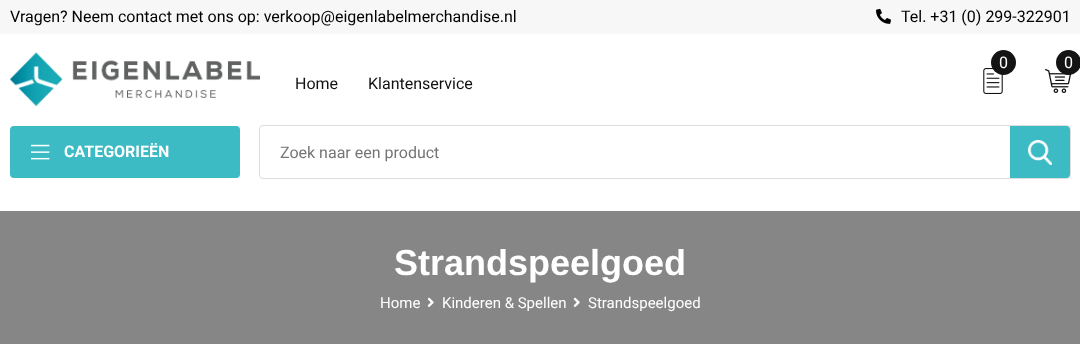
async function draw(canvas) {
  canvas.width = 1080;
  canvas.height = 344;
  const ctx = canvas.getContext('2d');
  ctx.miterLimit = 4;
  ctx.fontKerning = 'normal';
  function label(s, x, y, font, color) {
    ctx.font = font;
    ctx.fillStyle = color;
    ctx.fillText(s, x, y);
  }
  function rect(x, y, w, h, color) {
    ctx.fillStyle = color;
    ctx.fillRect(x, y, w, h);
  }
  function roundedRect(x, y, w, h, r, color) {
    ctx.fillStyle = color;
    ctx.beginPath();
    ctx.roundRect(x, y, w, h, r);
    ctx.fill();
  }
  async function image(src, x, y, w, h) {
    const img = new Image();
    img.src = src;
    await img.decode();
    ctx.drawImage(img, x, y, w, h);
  }

  rect(0, 0, 1080, 344, '#fff');
  rect(0, 0, 1080, 34, '#f7f7f7');
  label('Vragen? Neem contact met ons op: verkoop@eigenlabelmerchandise.nl', 10, 22, '16px Roboto', '#000');
  await image('assets/img1.png', 876, 8, 15, 16);
  label('Tel. +31 (0) 299-322901', 901, 22, '16px Roboto', '#000');
  await image('assets/img2.png', 10, 52, 250, 55);
  await image('assets/img3.png', 983, 68, 20, 26);
  ctx.fillStyle = '#141414';
  ctx.beginPath();
  ctx.arc(1003.5, 62.5, 12.5, 0, 2 * Math.PI);
  ctx.fill();
  label('0', 999, 68, '16px Roboto', '#fff');
  await image('assets/img4.png', 1045, 69, 26, 24);
  ctx.fillStyle = '#141414';
  ctx.beginPath();
  ctx.arc(1068.5, 62.5, 12.5, 0, 2 * Math.PI);
  ctx.fill();
  label('0', 1064, 68, '16px Roboto', '#fff');
  label('Home', 295, 89, '16px Roboto', '#111');
  label('Klantenservice', 368, 89, '16px Roboto', '#111');
  roundedRect(10, 126, 230, 52, 4, '#3dbbc5');
  await image('assets/img5.png', 31, 144, 19, 16);
  label('CATEGORIEËN', 64, 157, 'bold 16px Roboto', '#fff');
  ctx.beginPath();
  ctx.roundRect(259.5, 125.5, 811, 53, 3.5);
  ctx.strokeStyle = '#ddd';
  ctx.stroke();
  label('Zoek naar een product', 280, 158, '16px Roboto', '#757575');
  ctx.fillStyle = '#3dbbc5';
  ctx.beginPath();
  ctx.roundRect(1010, 126, 60, 52, [0, 4, 4, 0]);
  ctx.fill();
  await image('assets/img6.png', 1028, 140, 24, 25);
  rect(0, 211, 1080, 133, '#868686');
  label('Strandspeelgoed', 394, 275, 'bold 36px Liberation Sans', '#fff');
  label('Home', 380, 308, '15px Roboto', '#fff');
  await image('assets/img7.png', 427, 297, 7, 10);
  label('Kinderen & Spellen', 442, 308, '15px Roboto', '#fff');
  await image('assets/img7.png', 573, 297, 7, 10);
  label('Strandspeelgoed', 588, 308, '15px Roboto', '#fff');
}

draw(document.querySelector('canvas'));
